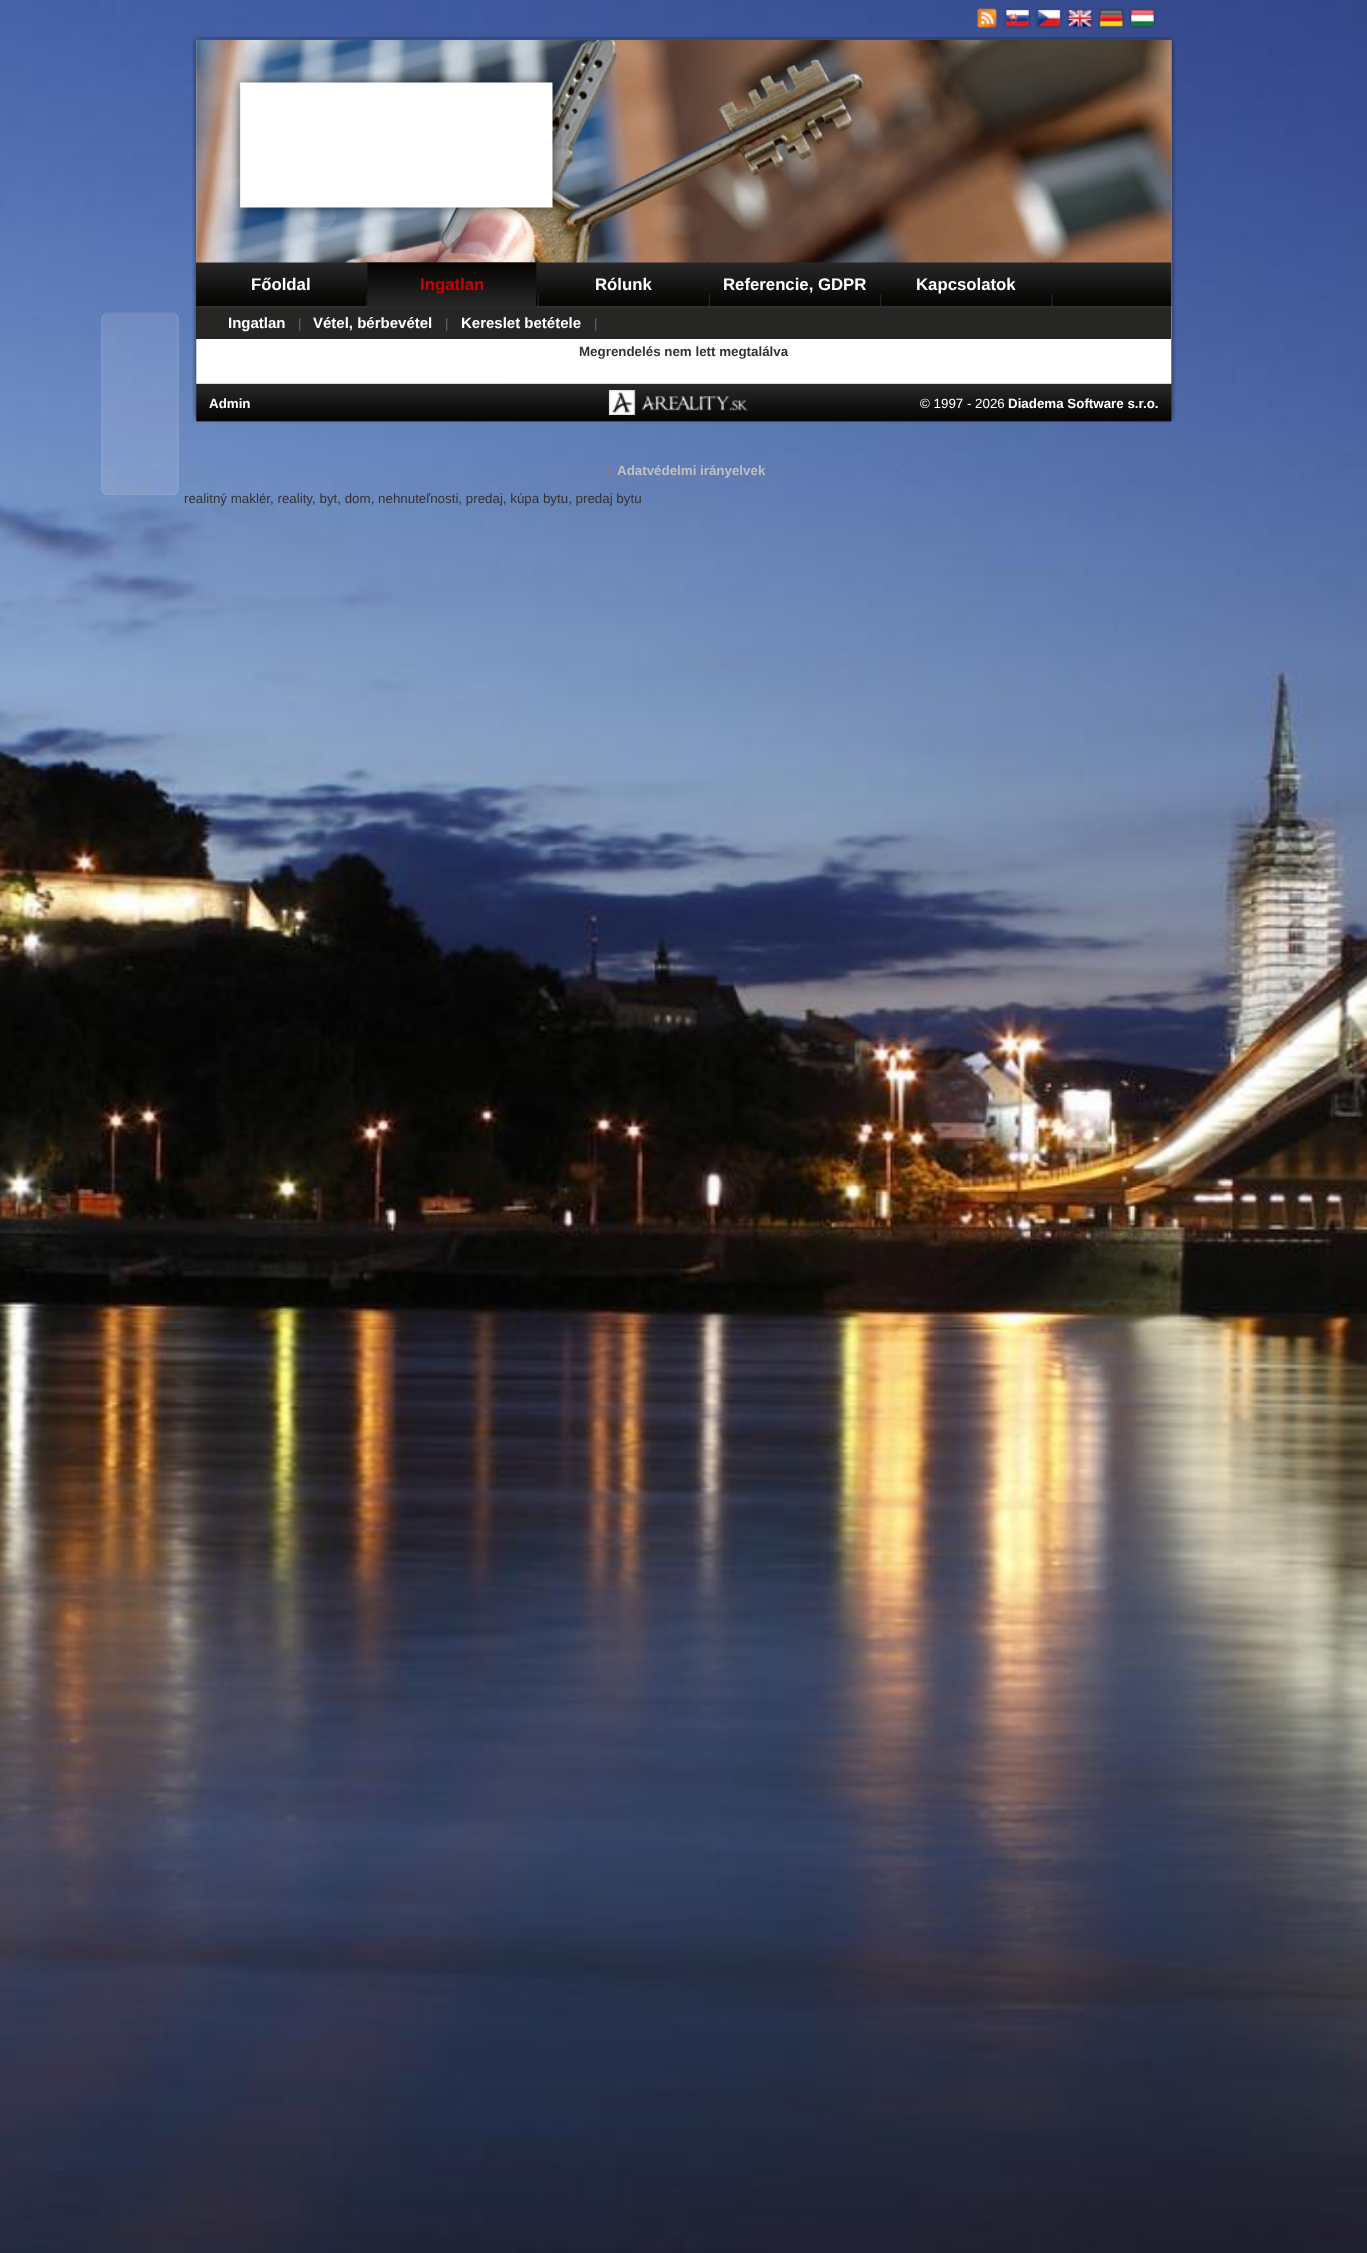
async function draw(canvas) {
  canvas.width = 1367;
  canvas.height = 2253;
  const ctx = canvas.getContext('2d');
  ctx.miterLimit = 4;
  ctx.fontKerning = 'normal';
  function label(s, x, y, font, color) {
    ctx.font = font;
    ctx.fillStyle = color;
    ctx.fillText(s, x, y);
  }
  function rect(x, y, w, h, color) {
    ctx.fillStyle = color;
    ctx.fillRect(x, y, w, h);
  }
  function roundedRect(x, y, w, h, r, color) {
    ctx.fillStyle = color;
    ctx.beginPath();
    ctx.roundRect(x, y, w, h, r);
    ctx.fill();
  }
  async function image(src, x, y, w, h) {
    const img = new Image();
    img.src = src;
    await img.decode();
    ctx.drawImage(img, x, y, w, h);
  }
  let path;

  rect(0, 0, 1367, 2253, '#fff');
  await image('assets/img1.png', 0, 0, 1367, 2253);
  await image('assets/img2.png', 977, 8, 20, 20);
  await image('assets/img3.png', 1004, 8, 27, 21);
  await image('assets/img4.png', 1035, 8, 27, 21);
  await image('assets/img5.png', 1066, 8, 27, 21);
  await image('assets/img6.png', 1098, 8, 27, 21);
  await image('assets/img7.png', 1129, 8, 27, 21);
  await image('assets/img8.png', 192, 36, 984, 21);
  await image('assets/img18.png', 192, 383, 984, 40);
  await image('assets/img9.png', 192, 56, 984, 328);
  await image('assets/img10.png', 196, 40, 976, 225);
  await image('assets/img11.png', 231, 73, 331, 144);
  rect(196, 263, 975, 76, '#262625');
  await image('assets/img12.png', 196, 262, 976, 46);
  await image('assets/img15.png', 365, 294, 3, 14);
  await image('assets/img13.png', 367, 262, 170, 46);
  label('Ingatlan', 420, 290, 'bold 16.75px Liberation Sans', '#c00');
  await image('assets/img14.png', 536, 294, 3, 14);
  label('Ingatlan', 228, 328, 'bold 15px Liberation Sans', '#fff');
  label('|', 298, 328, '13.35px Liberation Sans', '#666');
  label('Vétel, bérbevétel', 313, 328, 'bold 15px Liberation Sans', '#fff');
  label('|', 445, 328, '13.35px Liberation Sans', '#666');
  label('Kereslet betétele', 461, 328, 'bold 15px Liberation Sans', '#fff');
  label('|', 594, 328, '13.35px Liberation Sans', '#666');
  label('Főoldal', 251, 290, 'bold 16.75px Liberation Sans', '#fff');
  label('Rólunk', 595, 290, 'bold 16.75px Liberation Sans', '#fff');
  await image('assets/img16.png', 708, 294, 2, 14);
  label('Referencie, GDPR', 723, 290, 'bold 16.75px Liberation Sans', '#fff');
  await image('assets/img17.png', 879, 294, 3, 14);
  label('Kapcsolatok', 916, 290, 'bold 16.75px Liberation Sans', '#fff');
  await image('assets/img15.png', 1050, 294, 3, 14);
  roundedRect(101, 313, 78, 182, 6, '#ffffff1f');
  path = new Path2D('M103.5 315C104.5 313.5 106 313 107.5 313H172.5C174 313 175.5 313.5 176.5 315');
  ctx.strokeStyle = '#708abf';
  ctx.lineWidth = 1.2;
  ctx.stroke(path);
  path = new Path2D('M176.5 315C177.5 316 178 317.5 178 319V489C178 490 177.5 491.5 176.5 492.5C175.5 494 174 494.5 172.5 494.5H107.5C106 494.5 104.5 494 103.5 492.5C102.5 491.5 102 490 102 489V319C102 317.5 102.5 316 103.5 315');
  ctx.strokeStyle = '#e5e5e51f';
  ctx.stroke(path);
  label('Megrendelés nem lett megtalálva', 579, 356, 'bold 13.35px Liberation Sans', '#333');
  label('Admin', 209, 408, 'bold 13.35px Liberation Sans', '#fff');
  await image('assets/img19.png', 608, 390, 140, 25);
  label('© 1997 - 2026', 920, 408, '13.35px Liberation Sans', '#fff');
  label('Diadema Software s.r.o.', 1008, 408, 'bold 13.35px Liberation Sans', '#fff');
  label('|', 606, 475, 'bold 13.35px Liberation Sans', '#808080');
  label('Adatvédelmi irányelvek', 617, 475, 'bold 13.35px Liberation Sans', '#c0c0c0');
  label('realitný maklér, reality, byt, dom, nehnuteľnosti, predaj, kúpa bytu, predaj bytu', 184, 503, '13.35px Liberation Sans', '#333');
}

draw(document.querySelector('canvas'));
